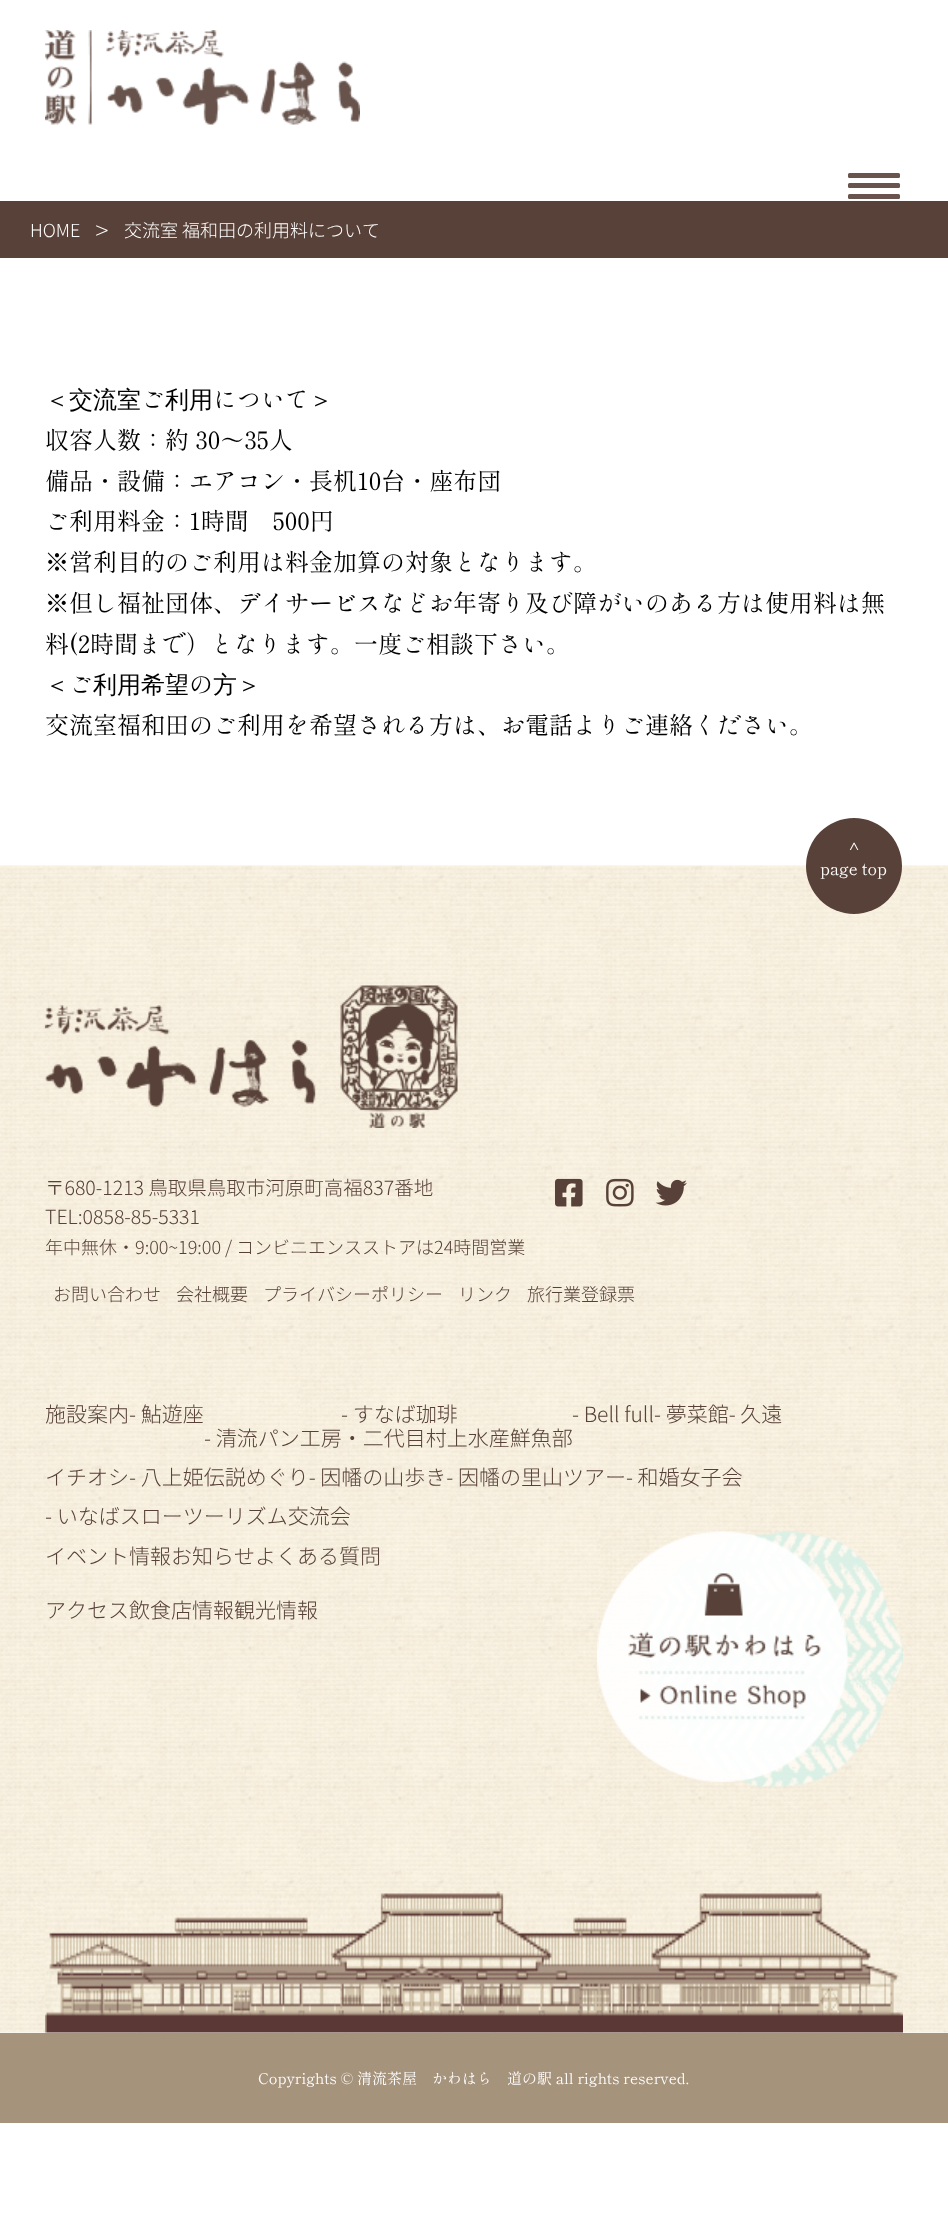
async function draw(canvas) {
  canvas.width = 948;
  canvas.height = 2231;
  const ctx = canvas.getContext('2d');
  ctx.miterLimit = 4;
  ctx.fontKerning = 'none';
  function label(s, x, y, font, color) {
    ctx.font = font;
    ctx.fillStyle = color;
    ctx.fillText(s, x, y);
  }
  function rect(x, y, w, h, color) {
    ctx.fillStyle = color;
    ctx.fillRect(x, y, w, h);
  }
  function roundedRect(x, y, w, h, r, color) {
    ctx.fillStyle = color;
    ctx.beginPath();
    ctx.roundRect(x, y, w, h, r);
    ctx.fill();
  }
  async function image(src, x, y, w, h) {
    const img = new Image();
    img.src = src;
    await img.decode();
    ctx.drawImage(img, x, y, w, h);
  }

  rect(0, 0, 948, 2231, '#fff');
  await image('assets/img1.png', 45, 30, 315, 95);
  roundedRect(848, 173, 52, 5, 1.5, '#68544c');
  roundedRect(848, 183, 52, 5, 1.5, '#68544c');
  roundedRect(848, 194, 52, 5, 1.5, '#68544c');
  rect(0, 201, 948, 57, '#574138');
  label('HOME', 30, 237, '300 18px Noto Sans JP', '#fff');
  label('>', 95, 237, '18px Shippori Mincho', '#fff');
  label('交流室 福和田の利用料について', 124, 237, '300 18px Noto Sans JP', '#fff');
  label('＜交流室', 45, 408, '500 24px WenQuanYi Zen Hei', '#000');
  label('ご', 141, 408, '24px Shippori Mincho', '#000');
  label('利用', 165, 408, '500 24px WenQuanYi Zen Hei', '#000');
  label('について', 213, 408, '24px Shippori Mincho', '#000');
  label('＞', 309, 408, '500 24px WenQuanYi Zen Hei', '#000');
  label('収容人数：約 30〜35人', 45, 449, '24px Shippori Mincho', '#000');
  label('備品・設備：エアコン・長机10台・座布団', 45, 490, '24px Shippori Mincho', '#000');
  label('ご利用料金：1時間　500円', 45, 530, '24px Shippori Mincho', '#000');
  label('※営利目的のご利用は料金加算の対象となります。', 45, 571, '24px Shippori Mincho', '#000');
  label('※但し福祉団体、デイサービスなどお年寄り及び障がいのある方は使用料は無', 45, 612, '24px Shippori Mincho', '#000');
  label('料(2時間まで）となります。一度ご相談下さい。', 45, 653, '24px Shippori Mincho', '#000');
  label('＜', 45, 693, '500 24px WenQuanYi Zen Hei', '#000');
  label('ご', 69, 693, '24px Shippori Mincho', '#000');
  label('利用希望', 93, 693, '500 24px WenQuanYi Zen Hei', '#000');
  label('の', 189, 693, '24px Shippori Mincho', '#000');
  label('方＞', 213, 693, '500 24px WenQuanYi Zen Hei', '#000');
  label('交流室福和田のご利用を希望される方は、お電話よりご連絡ください。', 45, 734, '24px Shippori Mincho', '#000');
  await image('assets/img2.png', 0, 865, 948, 1168);
  ctx.fillStyle = '#574138';
  ctx.beginPath();
  ctx.arc(854, 866, 48, 0, 2 * Math.PI);
  ctx.fill();
  label('^', 848, 856, '18px Shippori Mincho', '#fff');
  label('page top', 820, 875, '16.5px Shippori Mincho', '#fff');
  await image('assets/img3.png', 45, 985, 413, 143);
  label('〒680-1213 鳥取県鳥取市河原町高福837番地', 45, 1195, '300 19.5px Noto Sans JP', '#574138');
  label('TEL:0858-85-5331', 45, 1224, '300 19.5px Noto Sans JP', '#574138');
  label('年中無休・9:00~19:00 / コンビニエンスストアは24時間営業', 45, 1254, '300 18px Noto Sans JP', '#574138');
  await image('assets/img4.png', 555, 1178, 28, 29);
  await image('assets/img5.png', 606, 1178, 28, 29);
  await image('assets/img6.png', 655, 1179, 32, 27);
  label('お問い合わせ', 53, 1301, '300 18px Noto Sans JP', '#574138');
  label('会社概要', 176, 1301, '300 18px Noto Sans JP', '#574138');
  label('プライバシーポリシー', 263, 1301, '300 18px Noto Sans JP', '#574138');
  label('リンク', 458, 1301, '300 18px Noto Sans JP', '#574138');
  label('旅行業登録票', 527, 1301, '300 18px Noto Sans JP', '#574138');
  label('施設案内- 鮎遊座', 45, 1422, '300 21px Noto Sans JP', '#574138');
  label('- すなば珈琲', 341, 1422, '300 21px Noto Sans JP', '#574138');
  label('- Bell full- 夢菜館- 久遠', 572, 1422, '300 21px Noto Sans JP', '#574138');
  label('- 清流パン工房・二代目村上水産鮮魚部', 204, 1446, '300 21px Noto Sans JP', '#574138');
  label('イチオシ- 八上姫伝説めぐり- 因幡の山歩き- 因幡の里山ツアー- 和婚女子会', 45, 1485, '300 21px Noto Sans JP', '#574138');
  label('- いなばスローツーリズム交流会', 45, 1524, '300 21px Noto Sans JP', '#574138');
  await image('assets/img7.png', 597, 1531, 306, 256);
  await image('assets/img8.png', 45, 1891, 858, 142);
  label('イベント情報お知らせよくある質問', 45, 1564, '300 21px Noto Sans JP', '#574138');
  label('アクセス飲食店情報観光情報', 45, 1618, '300 21px Noto Sans JP', '#574138');
  rect(0, 2033, 948, 90, '#a6937c');
  label('Copyrights © 清流茶屋　かわはら　道の駅 all rights reserved.', 258, 2084, '15px Shippori Mincho', '#fff');
}

draw(document.querySelector('canvas'));
